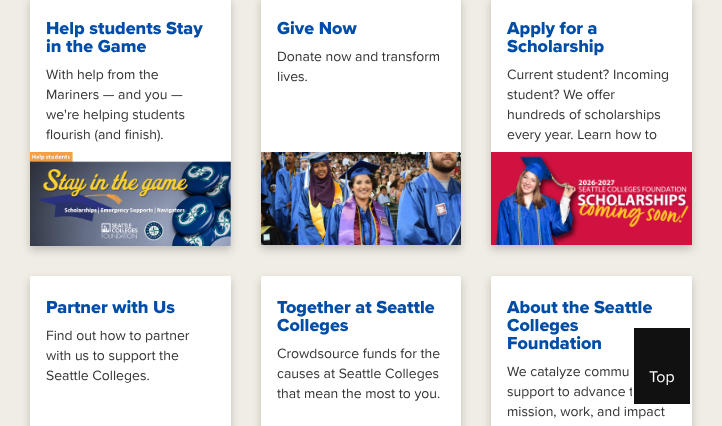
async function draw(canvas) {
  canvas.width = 722;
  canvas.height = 426;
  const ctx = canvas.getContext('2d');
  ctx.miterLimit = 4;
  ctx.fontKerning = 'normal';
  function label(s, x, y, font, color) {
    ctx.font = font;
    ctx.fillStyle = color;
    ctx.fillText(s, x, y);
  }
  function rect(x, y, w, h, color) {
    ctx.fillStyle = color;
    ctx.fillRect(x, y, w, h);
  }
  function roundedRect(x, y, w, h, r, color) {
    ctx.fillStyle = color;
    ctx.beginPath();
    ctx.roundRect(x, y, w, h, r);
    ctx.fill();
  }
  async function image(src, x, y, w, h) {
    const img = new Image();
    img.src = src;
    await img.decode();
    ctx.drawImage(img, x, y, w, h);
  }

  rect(0, 0, 722, 426, '#f0ede4');
  ctx.fillStyle = '#00000033';
  ctx.filter = 'blur(4px)';
  ctx.beginPath();
  ctx.roundRect(30, 1, 201, 249, 2);
  ctx.fill();
  ctx.filter = 'none';
  roundedRect(30, -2, 201, 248, 2, '#fff');
  label('Help students Stay', 46, 34, '800 18px Proxima Nova', '#004da8');
  label('in the Game', 46, 52, '800 18px Proxima Nova', '#004da8');
  label('With help from the', 46, 79, '14px Proxima Nova', '#333');
  label('Mariners — and you —', 46, 99, '14px Proxima Nova', '#333');
  label('we\'re helping students', 46, 119, '14px Proxima Nova', '#333');
  label('flourish (and finish).', 46, 139, '14px Proxima Nova', '#333');
  await image('assets/img1.png', 30, 152, 201, 94);
  ctx.fillStyle = '#00000033';
  ctx.filter = 'blur(4px)';
  ctx.beginPath();
  ctx.roundRect(261, 1, 200, 248, 2);
  ctx.fill();
  ctx.filter = 'none';
  rect(261, 0, 200, 152, '#fff');
  label('Give Now', 277, 34, '800 18px Proxima Nova', '#004da8');
  label('Donate now and transform', 277, 61, '14px Proxima Nova', '#333');
  label('lives.', 277, 81, '14px Proxima Nova', '#333');
  await image('assets/img2.png', 261, 152, 200, 93);
  ctx.fillStyle = '#00000033';
  ctx.filter = 'blur(4px)';
  ctx.beginPath();
  ctx.roundRect(491, 1, 201, 248, 2);
  ctx.fill();
  ctx.filter = 'none';
  rect(491, 0, 201, 152, '#fff');
  label('Apply for a', 507, 34, '800 18px Proxima Nova', '#004da8');
  label('Scholarship', 507, 52, '800 18px Proxima Nova', '#004da8');
  label('Current student? Incoming', 507, 79, '14px Proxima Nova', '#333');
  label('student? We offer', 507, 99, '14px Proxima Nova', '#333');
  label('hundreds of scholarships', 507, 119, '14px Proxima Nova', '#333');
  label('every year. Learn how to', 507, 139, '14px Proxima Nova', '#333');
  await image('assets/img3.png', 491, 152, 201, 93);
  ctx.fillStyle = '#00000033';
  ctx.filter = 'blur(4px)';
  ctx.beginPath();
  ctx.roundRect(30, 280, 201, 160, 2);
  ctx.fill();
  ctx.filter = 'none';
  roundedRect(30, 276, 201, 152, 2, '#fff');
  label('Partner with Us', 46, 313, '800 18px Proxima Nova', '#004da8');
  label('Find out how to partner', 46, 340, '14px Proxima Nova', '#333');
  label('with us to support the', 46, 360, '14px Proxima Nova', '#333');
  label('Seattle Colleges.', 46, 380, '14px Proxima Nova', '#333');
  ctx.fillStyle = '#00000033';
  ctx.filter = 'blur(4px)';
  ctx.beginPath();
  ctx.roundRect(261, 280, 200, 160, 2);
  ctx.fill();
  ctx.filter = 'none';
  roundedRect(261, 276, 200, 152, 2, '#fff');
  label('Together at Seattle', 277, 313, '800 18px Proxima Nova', '#004da8');
  label('Colleges', 277, 331, '800 18px Proxima Nova', '#004da8');
  label('Crowdsource funds for the', 277, 358, '14px Proxima Nova', '#333');
  label('causes at Seattle Colleges', 277, 378, '14px Proxima Nova', '#333');
  label('that mean the most to you.', 277, 398, '14px Proxima Nova', '#333');
  ctx.fillStyle = '#00000033';
  ctx.filter = 'blur(4px)';
  ctx.beginPath();
  ctx.roundRect(491, 280, 201, 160, 2);
  ctx.fill();
  ctx.filter = 'none';
  roundedRect(491, 276, 201, 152, 2, '#fff');
  label('About the Seattle', 507, 313, '800 18px Proxima Nova', '#004da8');
  label('Colleges', 507, 331, '800 18px Proxima Nova', '#004da8');
  label('Foundation', 507, 349, '800 18px Proxima Nova', '#004da8');
  label('We catalyze commu', 507, 376, '14px Proxima Nova', '#333');
  label('support to advance t', 507, 396, '14px Proxima Nova', '#333');
  label('mission, work, and impact', 507, 416, '14px Proxima Nova', '#333');
  ctx.fillStyle = '#111';
  ctx.beginPath();
  ctx.roundRect(633, 327, 58, 78, 1);
  ctx.fill();
  ctx.strokeStyle = '#fff';
  ctx.lineWidth = 2;
  ctx.stroke();
  label('Top', 649, 382, '16px Proxima Nova', '#fff');
}

draw(document.querySelector('canvas'));
